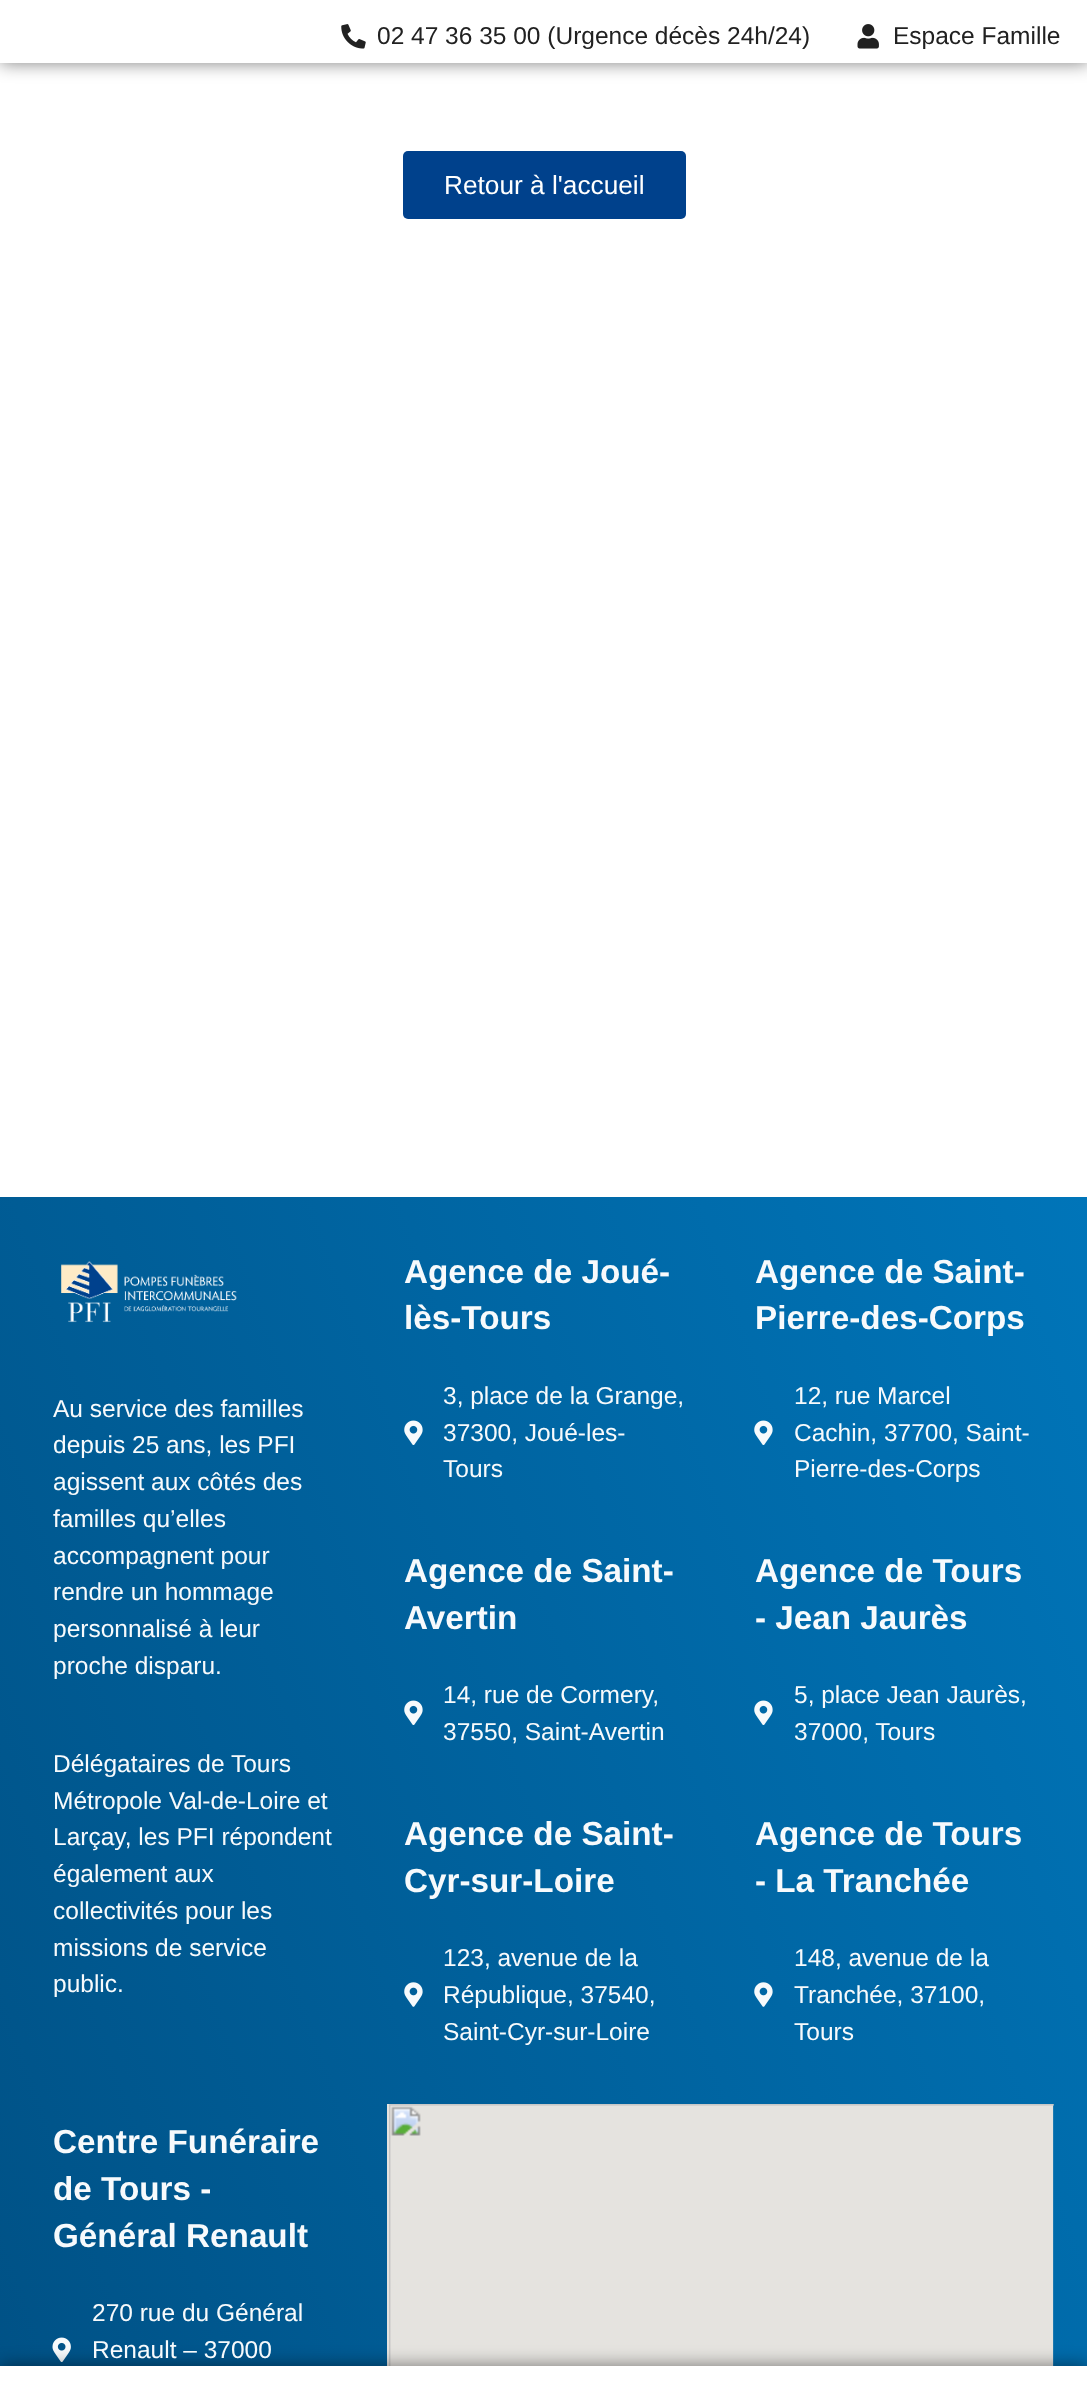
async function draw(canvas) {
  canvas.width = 1087;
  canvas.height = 2384;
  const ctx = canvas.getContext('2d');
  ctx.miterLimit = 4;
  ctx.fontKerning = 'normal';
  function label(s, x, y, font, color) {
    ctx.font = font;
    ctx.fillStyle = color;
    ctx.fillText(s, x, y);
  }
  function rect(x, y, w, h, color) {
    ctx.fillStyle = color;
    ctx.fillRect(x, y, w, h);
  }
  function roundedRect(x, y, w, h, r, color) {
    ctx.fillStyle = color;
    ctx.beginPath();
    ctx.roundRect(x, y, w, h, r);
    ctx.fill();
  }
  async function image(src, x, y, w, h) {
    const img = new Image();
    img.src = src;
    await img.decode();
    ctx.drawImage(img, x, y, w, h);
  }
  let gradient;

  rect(0, 0, 1087, 2384, '#fff');
  ctx.fillStyle = '#00000080';
  ctx.filter = 'blur(9px)';
  ctx.beginPath();
  ctx.rect(0, 0, 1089, 63);
  ctx.fill();
  ctx.filter = 'none';
  rect(0, 0, 1087, 63, '#fff');
  await image('assets/img1.png', 341, 24, 25, 25);
  label('02 47 36 35 00 (Urgence décès 24h/24)', 377, 44, '24.5px Liberation Sans', '#212121');
  await image('assets/img2.png', 857, 24, 22, 25);
  label('Espace Famille', 893, 44, '24.5px Liberation Sans', '#212121');
  gradient = ctx.createLinearGradient(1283, 1731, -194, 2269);
  gradient.addColorStop(0, '#0075b9');
  gradient.addColorStop(1, '#004e81');
  ctx.fillStyle = gradient;
  ctx.fillRect(0, 1197, 1087, 1169);
  await image('assets/img10.png', 52, 2337, 19, 25);
  await image('assets/img11.png', 387, 2104, 667, 262);
  ctx.fillStyle = '#00000080';
  ctx.filter = 'blur(9px)';
  ctx.beginPath();
  ctx.rect(0, 2366, 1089, 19);
  ctx.fill();
  ctx.filter = 'none';
  rect(0, 2366, 1087, 18, '#fff');
  roundedRect(403, 151, 283, 68, 5, '#00418c');
  label('Retour à l\'accueil', 444, 194, '26.25px Liberation Sans', '#fff');
  await image('assets/img3.png', 61, 1261, 176, 62);
  label('Au service des familles', 53, 1417, '24.5px Liberation Sans', '#f7fafc');
  label('depuis 25 ans, les PFI', 53, 1453, '24.5px Liberation Sans', '#f7fafc');
  label('agissent aux côtés des', 53, 1490, '24.5px Liberation Sans', '#f7fafc');
  label('familles qu’elles', 53, 1527, '24.5px Liberation Sans', '#f7fafc');
  label('accompagnent pour', 53, 1564, '24.5px Liberation Sans', '#f7fafc');
  label('rendre un hommage', 53, 1600, '24.5px Liberation Sans', '#f7fafc');
  label('personnalisé à leur', 53, 1637, '24.5px Liberation Sans', '#f7fafc');
  label('proche disparu.', 53, 1674, '24.5px Liberation Sans', '#f7fafc');
  label('Délégataires de Tours', 53, 1772, '24.5px Liberation Sans', '#f7fafc');
  label('Métropole Val-de-Loire et', 53, 1809, '24.5px Liberation Sans', '#f7fafc');
  label('Larçay, les PFI répondent', 53, 1845, '24.5px Liberation Sans', '#f7fafc');
  label('également aux', 53, 1882, '24.5px Liberation Sans', '#f7fafc');
  label('collectivités pour les', 53, 1919, '24.5px Liberation Sans', '#f7fafc');
  label('missions de service', 53, 1956, '24.5px Liberation Sans', '#f7fafc');
  label('public.', 53, 1992, '24.5px Liberation Sans', '#f7fafc');
  label('Agence de Joué-', 404, 1283, 'bold 33.25px Liberation Sans', '#f7fafc');
  label('lès-Tours', 404, 1329, 'bold 33.25px Liberation Sans', '#f7fafc');
  await image('assets/img4.png', 404, 1420, 19, 25);
  label('3, place de la Grange,', 443, 1404, '24.5px Liberation Sans', '#f7fafc');
  label('37300, Joué-les-', 443, 1441, '24.5px Liberation Sans', '#f7fafc');
  label('Tours', 443, 1477, '24.5px Liberation Sans', '#f7fafc');
  label('Agence de Saint-', 404, 1582, 'bold 33.25px Liberation Sans', '#f7fafc');
  label('Avertin', 404, 1629, 'bold 33.25px Liberation Sans', '#f7fafc');
  await image('assets/img5.png', 404, 1700, 19, 25);
  label('14, rue de Cormery,', 443, 1703, '24.5px Liberation Sans', '#f7fafc');
  label('37550, Saint-Avertin', 443, 1740, '24.5px Liberation Sans', '#f7fafc');
  label('Agence de Saint-', 404, 1845, 'bold 33.25px Liberation Sans', '#f7fafc');
  label('Cyr-sur-Loire', 404, 1892, 'bold 33.25px Liberation Sans', '#f7fafc');
  await image('assets/img6.png', 404, 1982, 19, 25);
  label('123, avenue de la', 443, 1966, '24.5px Liberation Sans', '#f7fafc');
  label('République, 37540,', 443, 2003, '24.5px Liberation Sans', '#f7fafc');
  label('Saint-Cyr-sur-Loire', 443, 2040, '24.5px Liberation Sans', '#f7fafc');
  label('Agence de Saint-', 755, 1283, 'bold 33.25px Liberation Sans', '#f7fafc');
  label('Pierre-des-Corps', 755, 1329, 'bold 33.25px Liberation Sans', '#f7fafc');
  await image('assets/img7.png', 754, 1420, 19, 25);
  label('12, rue Marcel', 794, 1404, '24.5px Liberation Sans', '#f7fafc');
  label('Cachin, 37700, Saint-', 794, 1441, '24.5px Liberation Sans', '#f7fafc');
  label('Pierre-des-Corps', 794, 1477, '24.5px Liberation Sans', '#f7fafc');
  label('Agence de Tours', 755, 1582, 'bold 33.25px Liberation Sans', '#f7fafc');
  label('- Jean Jaurès', 755, 1629, 'bold 33.25px Liberation Sans', '#f7fafc');
  await image('assets/img8.png', 754, 1700, 19, 25);
  label('5, place Jean Jaurès,', 794, 1703, '24.5px Liberation Sans', '#f7fafc');
  label('37000, Tours', 794, 1740, '24.5px Liberation Sans', '#f7fafc');
  label('Agence de Tours', 755, 1845, 'bold 33.25px Liberation Sans', '#f7fafc');
  label('- La Tranchée', 755, 1892, 'bold 33.25px Liberation Sans', '#f7fafc');
  await image('assets/img9.png', 754, 1982, 19, 25);
  label('148, avenue de la', 794, 1966, '24.5px Liberation Sans', '#f7fafc');
  label('Tranchée, 37100,', 794, 2003, '24.5px Liberation Sans', '#f7fafc');
  label('Tours', 794, 2040, '24.5px Liberation Sans', '#f7fafc');
  label('Centre Funéraire', 53, 2153, 'bold 33.25px Liberation Sans', '#f7fafc');
  label('de Tours -', 53, 2200, 'bold 33.25px Liberation Sans', '#f7fafc');
  label('Général Renault', 53, 2247, 'bold 33.25px Liberation Sans', '#f7fafc');
  label('270 rue du Général', 92, 2321, '24.5px Liberation Sans', '#f7fafc');
  label('Renault – 37000', 92, 2358, '24.5px Liberation Sans', '#f7fafc');
}

draw(document.querySelector('canvas'));
